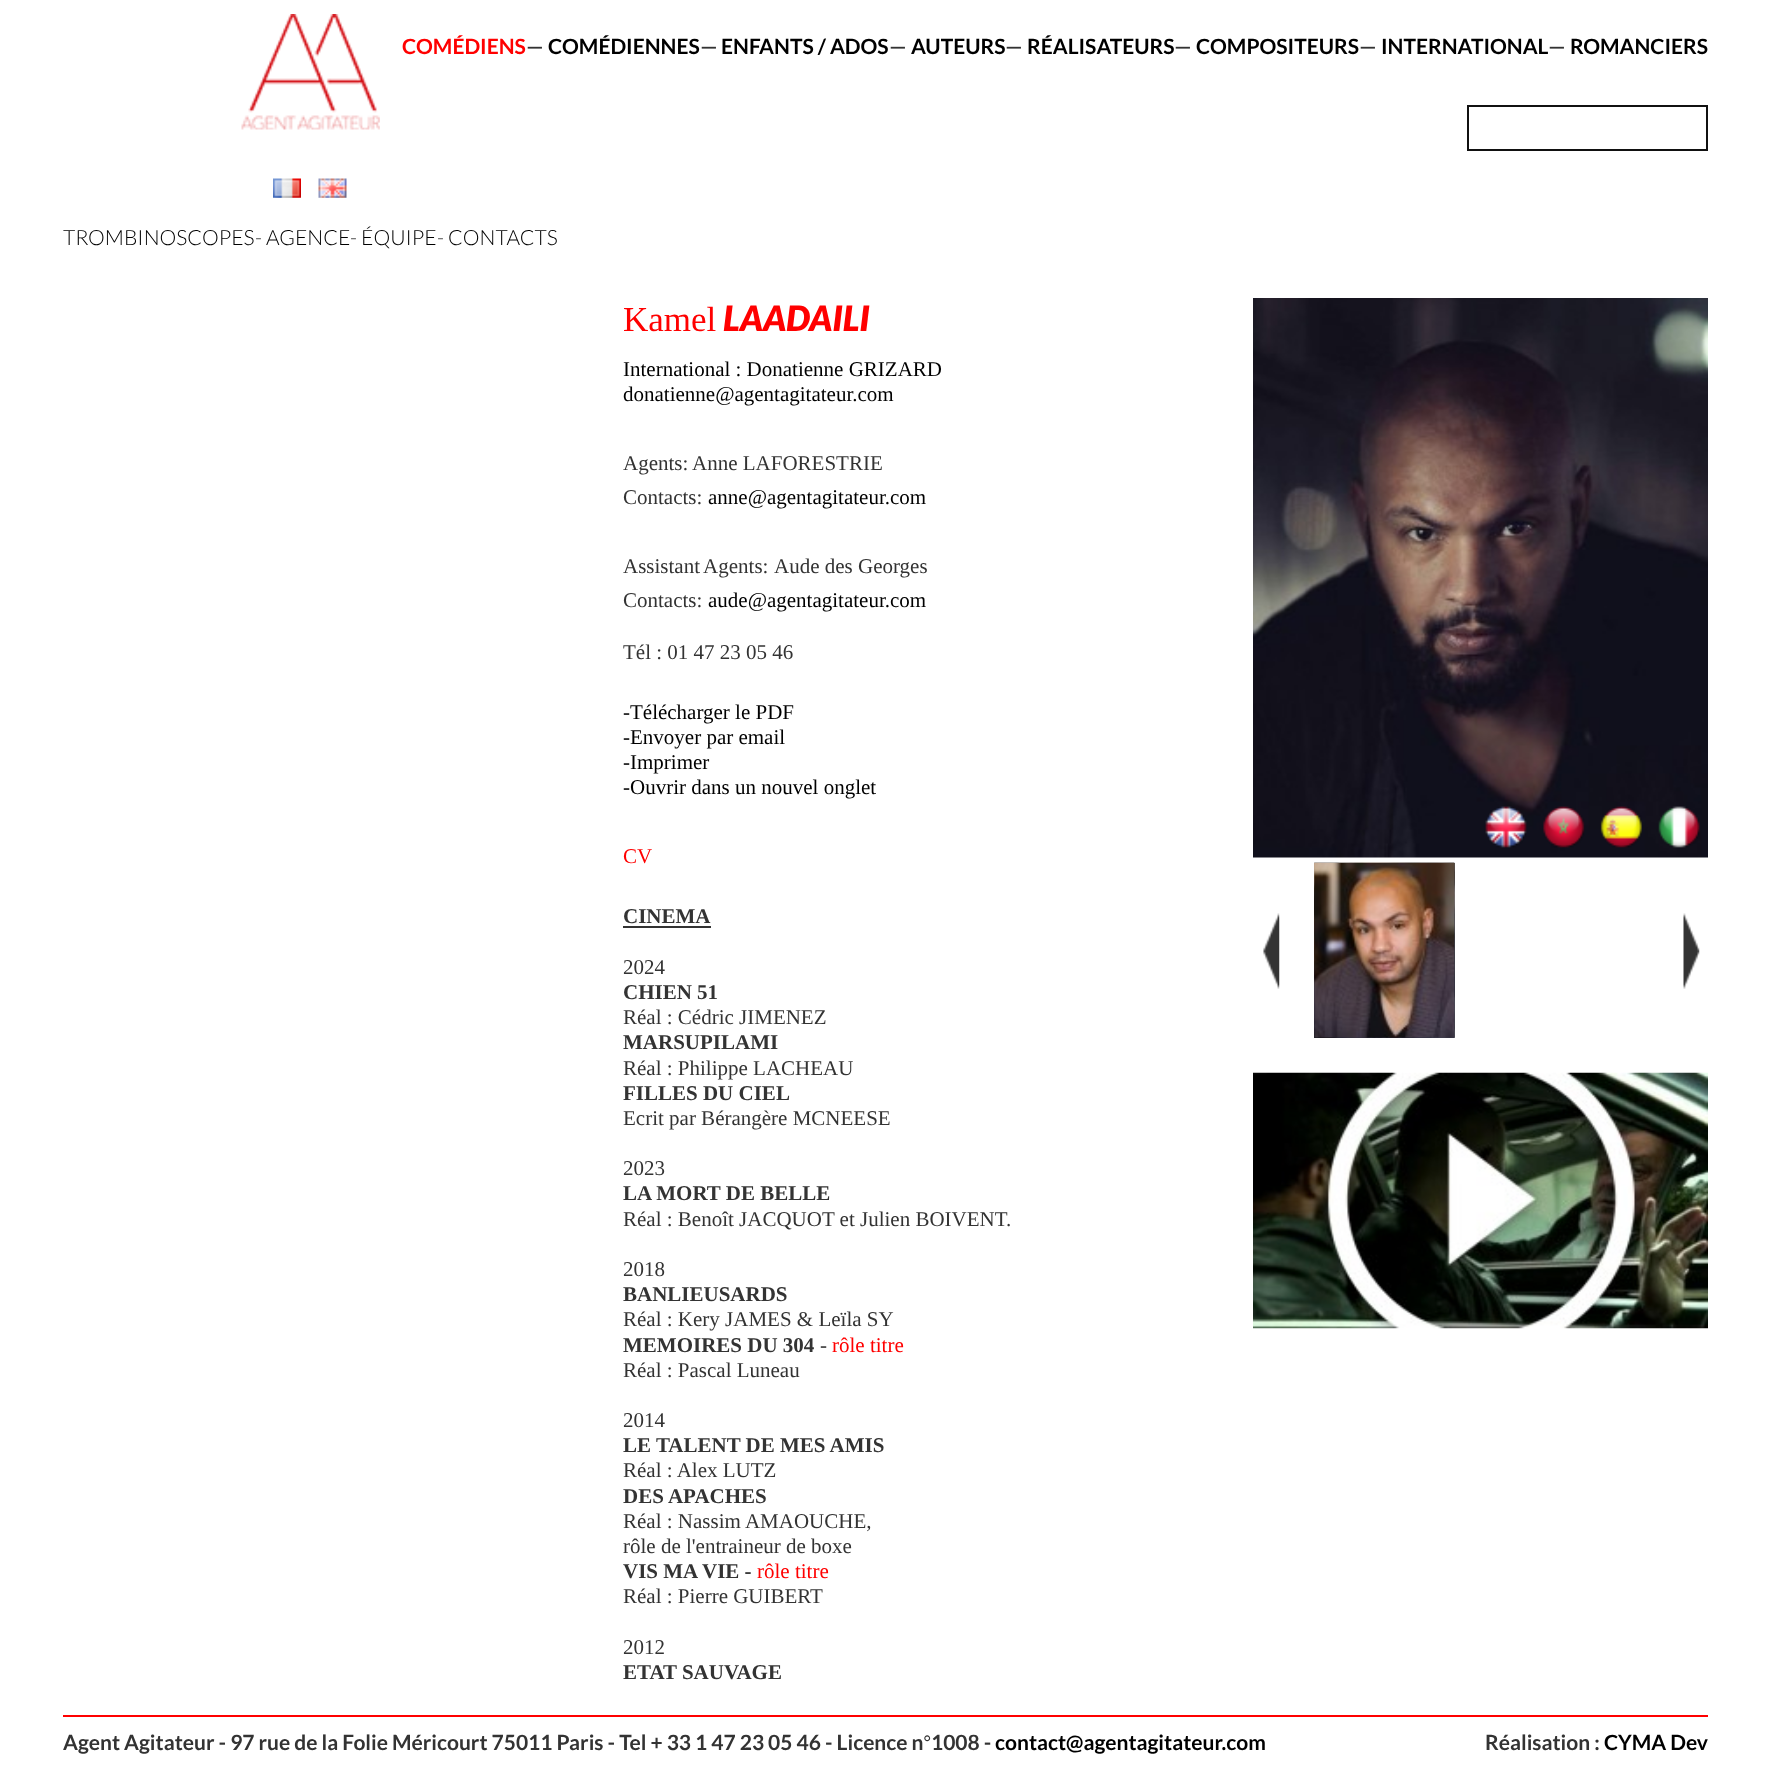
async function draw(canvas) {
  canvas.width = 1771;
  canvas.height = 1767;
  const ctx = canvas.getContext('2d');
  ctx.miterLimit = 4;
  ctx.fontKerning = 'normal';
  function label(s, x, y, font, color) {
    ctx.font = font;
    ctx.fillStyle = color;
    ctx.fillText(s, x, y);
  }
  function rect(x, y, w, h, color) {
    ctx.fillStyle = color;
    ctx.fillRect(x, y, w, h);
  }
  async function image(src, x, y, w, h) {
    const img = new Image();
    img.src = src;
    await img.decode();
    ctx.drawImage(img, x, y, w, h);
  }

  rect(0, 0, 1771, 1767, '#fff');
  label('COMÉDIENS', 402, 54, 'bold 21px Lato', '#f00');
  label('—', 526, 54, 'bold 21px Lato', '#333');
  label('COMÉDIENNES', 548, 54, 'bold 21px Lato', '#000');
  label('—', 700, 54, 'bold 21px Lato', '#333');
  label('ENFANTS / ADOS', 721, 54, 'bold 21px Lato', '#000');
  label('—', 889, 54, 'bold 21px Lato', '#333');
  label('AUTEURS', 911, 54, 'bold 21px Lato', '#000');
  label('—', 1005, 54, 'bold 21px Lato', '#333');
  label('RÉALISATEURS', 1027, 54, 'bold 21px Lato', '#000');
  label('—', 1174, 54, 'bold 21px Lato', '#333');
  label('COMPOSITEURS', 1196, 54, 'bold 21px Lato', '#000');
  label('—', 1359, 54, 'bold 21px Lato', '#333');
  label('INTERNATIONAL', 1381, 54, 'bold 21px Lato', '#000');
  label('—', 1548, 54, 'bold 21px Lato', '#333');
  label('ROMANCIERS', 1570, 54, 'bold 21px Lato', '#000');
  ctx.strokeStyle = '#111';
  ctx.lineWidth = 2;
  ctx.strokeRect(1468, 106, 239, 44);
  await image('assets/img1.png', 241, 14, 139, 116);
  await image('assets/img2.png', 273, 178, 28, 20);
  await image('assets/img3.png', 318, 178, 29, 20);
  label('TROMBINOSCOPES', 63, 245, '300 21px Lato', '#000');
  label('-', 255, 245, '300 21px Lato', '#333');
  label('AGENCE', 266, 245, '300 21px Lato', '#000');
  label('-', 350, 245, '300 21px Lato', '#333');
  label('ÉQUIPE', 361, 245, '300 21px Lato', '#000');
  label('-', 437, 245, '300 21px Lato', '#333');
  label('CONTACTS', 448, 245, '300 21px Lato', '#000');
  label('Kamel', 623, 331, '35px Liberation Serif', '#f00');
  label('LAADAILI', 723, 331, 'italic 900 35px Lato', '#f00');
  label('International : Donatienne GRIZARD', 623, 376, '21px Liberation Serif', '#000');
  label('donatienne@agentagitateur.com', 623, 401, '21px Liberation Serif', '#000');
  label('Agents:', 623, 470, '21px Liberation Serif', '#333');
  label('Anne LAFORESTRIE', 692, 470, '21px Liberation Serif', '#333');
  label('Contacts:', 623, 504, '21px Liberation Serif', '#333');
  label('anne@agentagitateur.com', 708, 504, '21px Liberation Serif', '#000');
  ctx.wordSpacing = '-1px';
  label('Assistant Agents:', 623, 573, '21px Liberation Serif', '#333');
  ctx.wordSpacing = '0px';
  label('Aude des Georges', 774, 573, '21px Liberation Serif', '#333');
  label('Contacts:', 623, 607, '21px Liberation Serif', '#333');
  label('aude@agentagitateur.com', 708, 607, '21px Liberation Serif', '#000');
  label('Tél : 01 47 23 05 46', 623, 659, '21px Liberation Serif', '#333');
  label('-Télécharger le PDF', 623, 719, '21px Liberation Serif', '#000');
  label('-Envoyer par email', 623, 744, '21px Liberation Serif', '#000');
  label('-Imprimer', 623, 769, '21px Liberation Serif', '#000');
  label('-Ouvrir dans un nouvel onglet', 623, 794, '21px Liberation Serif', '#000');
  label('CV', 623, 863, '21px Liberation Serif', '#f00');
  label('CINEMA', 623, 923, 'bold 21px Liberation Serif', '#333');
  rect(623, 926, 88, 2, '#333');
  label('2024', 623, 974, '21px Liberation Serif', '#333');
  label('CHIEN 51', 623, 999, 'bold 21px Liberation Serif', '#333');
  label('Réal : Cédric JIMENEZ', 623, 1024, '21px Liberation Serif', '#333');
  label('MARSUPILAMI', 623, 1049, 'bold 21px Liberation Serif', '#333');
  label('Réal : Philippe LACHEAU', 623, 1075, '21px Liberation Serif', '#333');
  label('FILLES DU CIEL', 623, 1100, 'bold 21px Liberation Serif', '#333');
  label('Ecrit par Bérangère MCNEESE', 623, 1125, '21px Liberation Serif', '#333');
  label('2023', 623, 1175, '21px Liberation Serif', '#333');
  label('LA MORT DE BELLE', 623, 1200, 'bold 21px Liberation Serif', '#333');
  label('Réal : Benoît JACQUOT et Julien BOIVENT.', 623, 1226, '21px Liberation Serif', '#333');
  label('2018', 623, 1276, '21px Liberation Serif', '#333');
  label('BANLIEUSARDS', 623, 1301, 'bold 21px Liberation Serif', '#333');
  label('Réal : Kery JAMES & Leïla SY', 623, 1326, '21px Liberation Serif', '#333');
  label('MEMOIRES DU 304', 623, 1352, 'bold 21px Liberation Serif', '#333');
  label('-', 820, 1352, '21px Liberation Serif', '#333');
  label('rôle titre', 832, 1352, '21px Liberation Serif', '#f00');
  label('Réal : Pascal Luneau', 623, 1377, '21px Liberation Serif', '#333');
  label('2014', 623, 1427, '21px Liberation Serif', '#333');
  label('LE TALENT DE MES AMIS', 623, 1452, 'bold 21px Liberation Serif', '#333');
  label('Réal : Alex LUTZ', 623, 1477, '21px Liberation Serif', '#333');
  label('DES APACHES', 623, 1503, 'bold 21px Liberation Serif', '#333');
  label('Réal : Nassim AMAOUCHE,', 623, 1528, '21px Liberation Serif', '#333');
  label('rôle de l\'entraineur de boxe', 623, 1553, '21px Liberation Serif', '#333');
  label('VIS MA VIE -', 623, 1578, 'bold 21px Liberation Serif', '#333');
  label('rôle titre', 757, 1578, '21px Liberation Serif', '#f00');
  label('Réal : Pierre GUIBERT', 623, 1603, '21px Liberation Serif', '#333');
  label('2012', 623, 1654, '21px Liberation Serif', '#333');
  label('ETAT SAUVAGE', 623, 1679, 'bold 21px Liberation Serif', '#333');
  await image('assets/img4.png', 1253, 298, 455, 560);
  await image('assets/img5.png', 1485, 806, 42, 42);
  await image('assets/img6.png', 1543, 806, 42, 42);
  await image('assets/img7.png', 1600, 806, 42, 42);
  await image('assets/img8.png', 1658, 806, 42, 42);
  await image('assets/img9.png', 1263, 913, 17, 76);
  await image('assets/img10.png', 1314, 862, 141, 176);
  await image('assets/img11.png', 1314, 862, 141, 176);
  await image('assets/img20.png', 1314, 863, 141, 175);
  await image('assets/img12.png', 1314, 862, 141, 176);
  await image('assets/img13.png', 1314, 862, 141, 176);
  await image('assets/img14.png', 1314, 862, 141, 176);
  await image('assets/img21.png', 1314, 863, 141, 175);
  await image('assets/img15.png', 1314, 862, 141, 176);
  await image('assets/img16.png', 1314, 862, 141, 176);
  await image('assets/img17.png', 1314, 862, 141, 176);
  await image('assets/img18.png', 1314, 862, 141, 176);
  await image('assets/img19.png', 1314, 862, 141, 176);
  await image('assets/img22.png', 1683, 913, 17, 76);
  await image('assets/img23.png', 1253, 1072, 455, 257);
  rect(63, 1715, 1645, 2, '#f00');
  label('Agent Agitateur - 97 rue de la Folie Méricourt 75011 Paris - Tel + 33 1 47 23 05 46', 63, 1750, 'bold 21px Lato', '#333');
  label('- Licence n', 825, 1750, 'bold 21px Lato', '#333');
  label('°', 923, 1750, '21px Liberation Sans', '#333');
  label('1008 -', 931, 1750, 'bold 21px Lato', '#333');
  label('contact@agentagitateur.com', 995, 1750, 'bold 21px Lato', '#000');
  label('Réalisation :', 1485, 1750, 'bold 21px Lato', '#333');
  label('CYMA Dev', 1604, 1750, 'bold 21px Lato', '#000');
}

draw(document.querySelector('canvas'));
